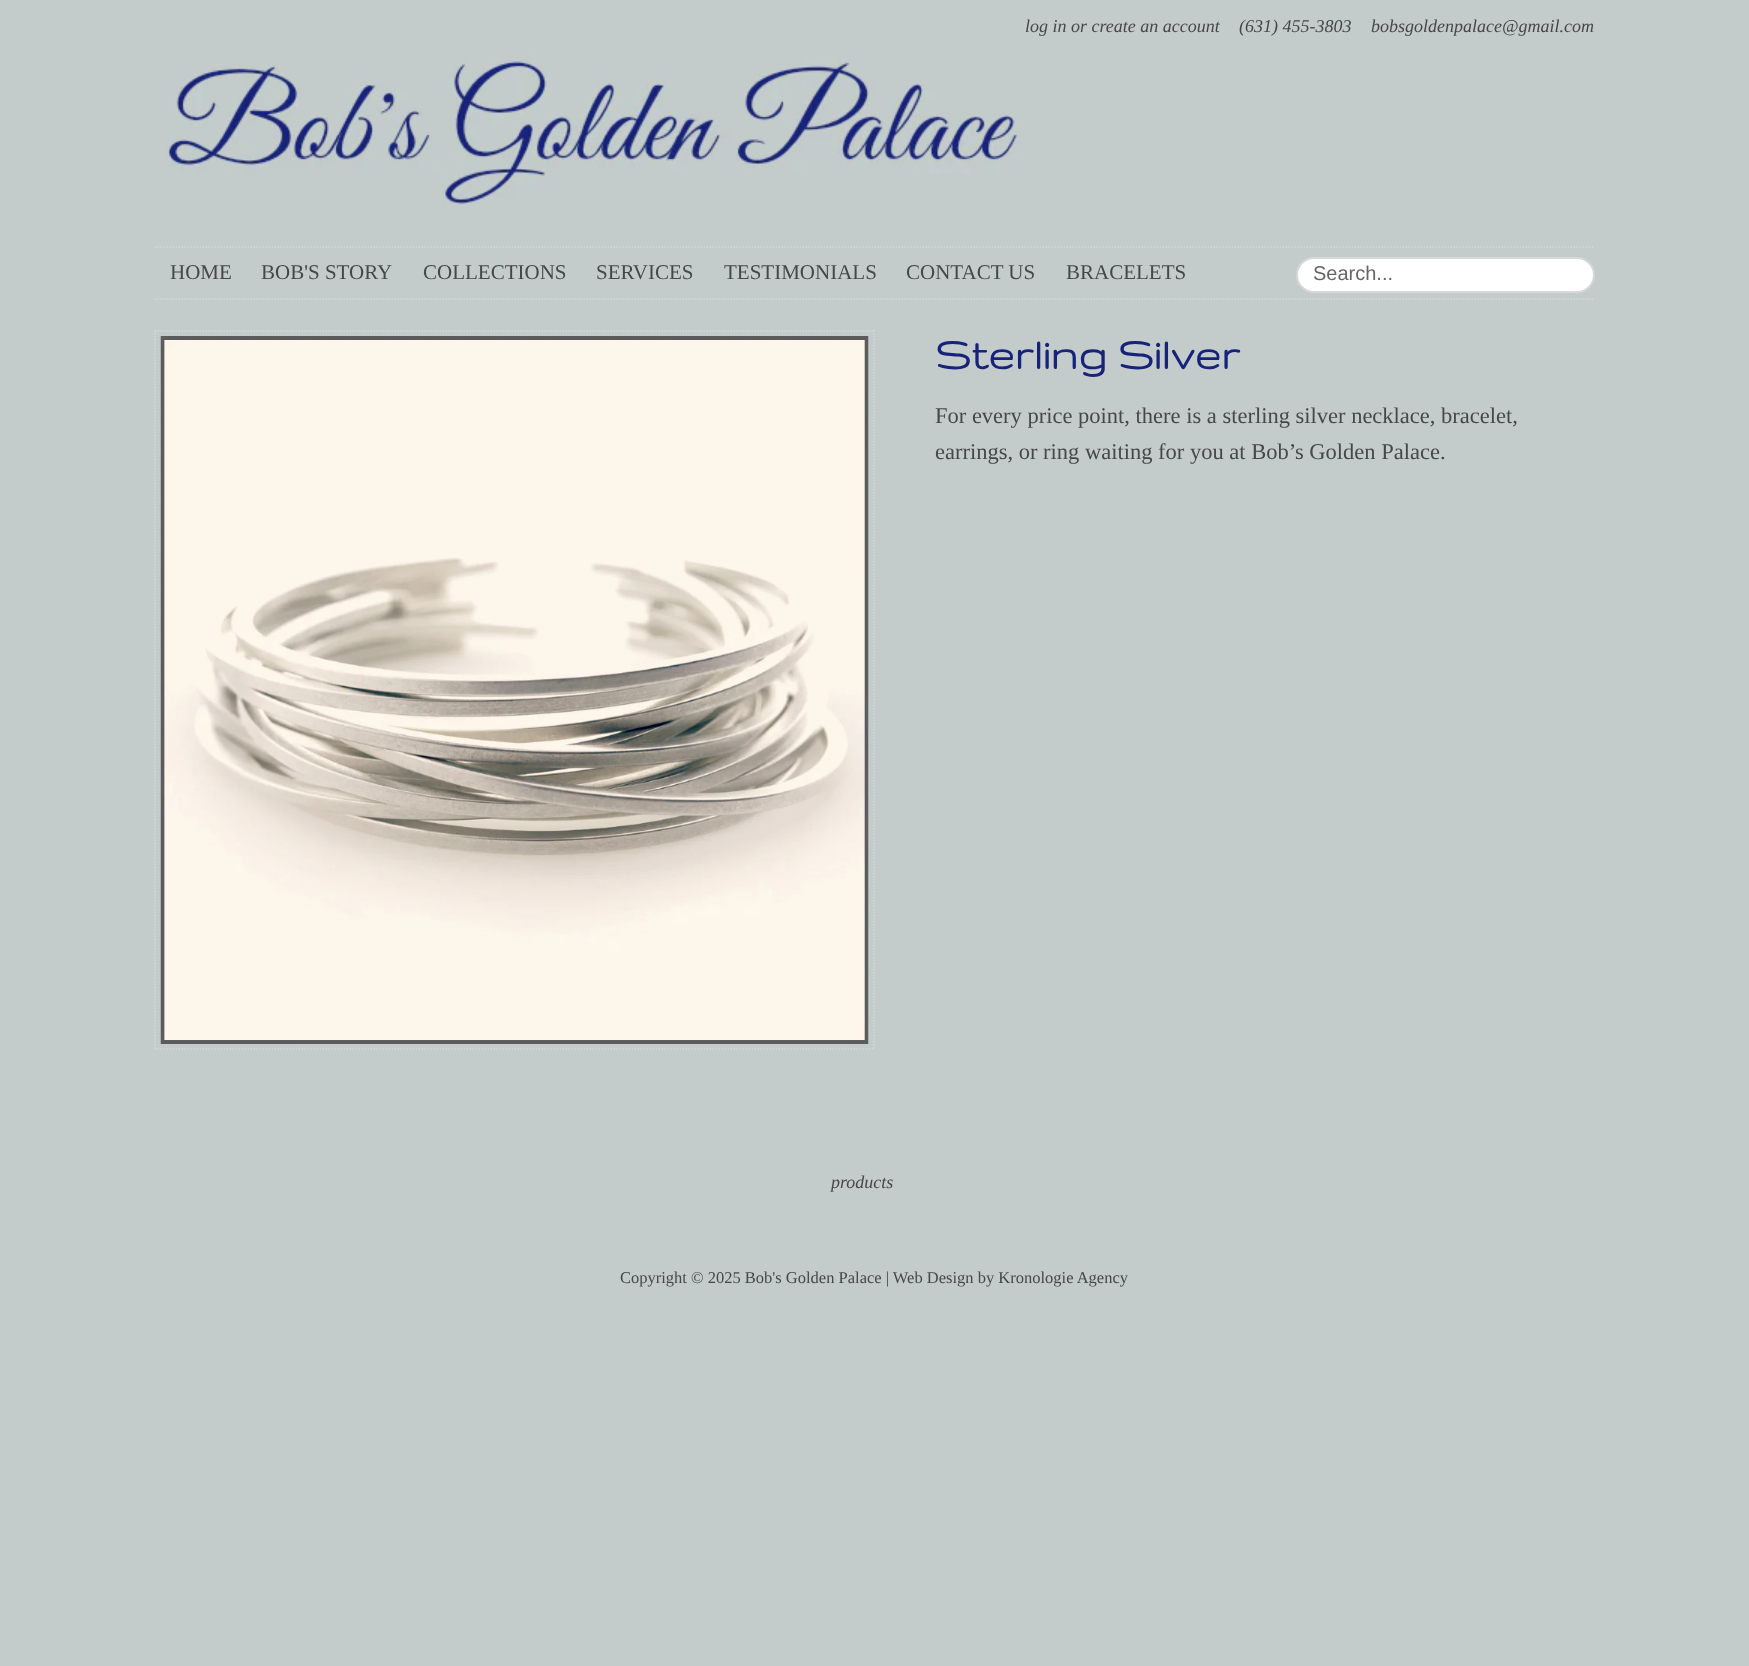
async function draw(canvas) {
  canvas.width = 1749;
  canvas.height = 1666;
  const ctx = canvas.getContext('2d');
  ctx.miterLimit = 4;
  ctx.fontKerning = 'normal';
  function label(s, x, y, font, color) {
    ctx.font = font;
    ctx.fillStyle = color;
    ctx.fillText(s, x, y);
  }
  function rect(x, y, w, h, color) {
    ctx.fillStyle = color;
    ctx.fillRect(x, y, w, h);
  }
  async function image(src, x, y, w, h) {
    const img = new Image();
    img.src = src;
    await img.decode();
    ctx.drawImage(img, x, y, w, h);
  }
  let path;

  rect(0, 0, 1749, 1666, '#c4cccb');
  label('log in or create an account', 1025, 32, 'italic 18px Liberation Serif', '#474747');
  label('(631) 455-3803', 1239, 32, 'italic 18px Liberation Serif', '#474747');
  label('bobsgoldenpalace@gmail.com', 1371, 32, 'italic 18px Liberation Serif', '#474747');
  await image('assets/img1.png', 166, 54, 853, 154);
  path = new Path2D('M154.5 247H1594.5');
  ctx.strokeStyle = '#d8d8d8';
  ctx.lineWidth = 1.5;
  ctx.setLineDash([1.5, 1.5]);
  ctx.stroke(path);
  path = new Path2D('M154.5 299H1594.5');
  ctx.stroke(path);
  label('HOME', 170, 279, '21px Liberation Serif', '#474747');
  label('BOB\'S STORY', 261, 279, '21px Liberation Serif', '#474747');
  label('COLLECTIONS', 423, 279, '21px Liberation Serif', '#474747');
  label('SERVICES', 596, 279, '21px Liberation Serif', '#474747');
  label('TESTIMONIALS', 724, 279, '21px Liberation Serif', '#474747');
  label('CONTACT US', 906, 279, '21px Liberation Serif', '#474747');
  label('BRACELETS', 1066, 279, '21px Liberation Serif', '#474747');
  ctx.fillStyle = '#fff';
  ctx.beginPath();
  ctx.roundRect(1297, 258, 297, 34, 17);
  ctx.fill();
  ctx.lineWidth = 2;
  ctx.setLineDash([]);
  ctx.stroke();
  label('Search...', 1313, 280, '20px Liberation Sans', '#666');
  path = new Path2D('M154.5 331H874.5');
  ctx.lineWidth = 1.5;
  ctx.setLineDash([1.5, 1.5]);
  ctx.stroke(path);
  path = new Path2D('M874 330V1050');
  ctx.stroke(path);
  path = new Path2D('M154.5 1049H874.5');
  ctx.stroke(path);
  path = new Path2D('M155 330V1050');
  ctx.stroke(path);
  await image('assets/img2.png', 160, 336, 709, 708);
  label('Sterling Silver', 935, 369, 'bold 48px Gruppo', '#17237a');
  label('For every price point, there is a sterling silver necklace, bracelet,', 935, 423, '22.5px Liberation Serif', '#474747');
  label('earrings, or ring waiting for you at Bob’s Golden Palace.', 935, 459, '22.5px Liberation Serif', '#474747');
  label('products', 831, 1188, 'italic 18px Liberation Serif', '#474747');
  label('Copyright © 2025 Bob\'s Golden Palace | Web Design by Kronologie Agency', 620, 1283, '16.5px Liberation Serif', '#474747');
}

draw(document.querySelector('canvas'));
